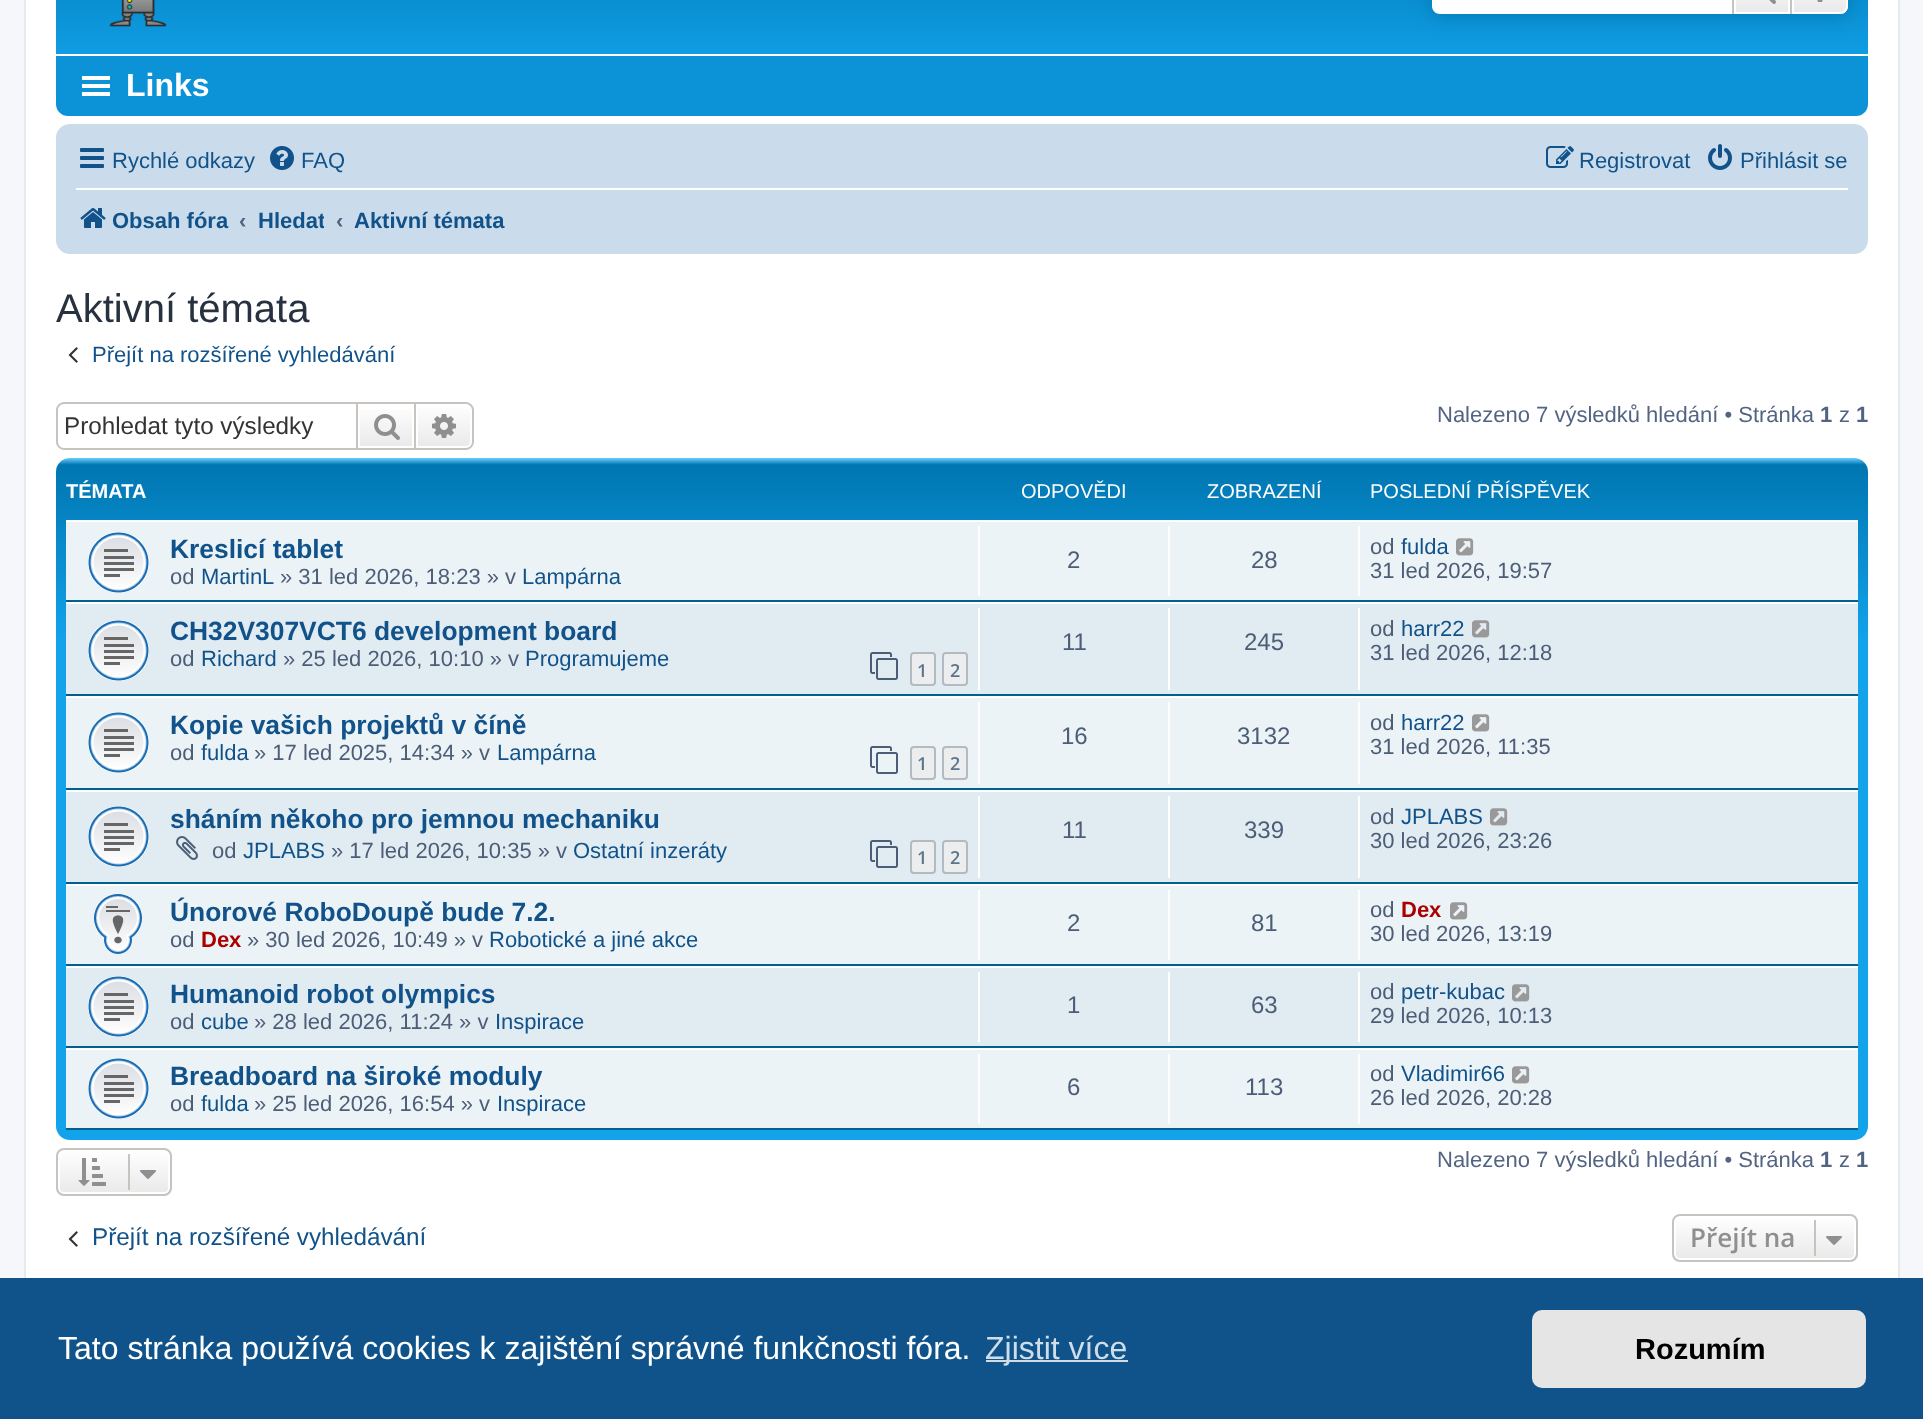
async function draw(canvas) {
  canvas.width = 1923;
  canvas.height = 1419;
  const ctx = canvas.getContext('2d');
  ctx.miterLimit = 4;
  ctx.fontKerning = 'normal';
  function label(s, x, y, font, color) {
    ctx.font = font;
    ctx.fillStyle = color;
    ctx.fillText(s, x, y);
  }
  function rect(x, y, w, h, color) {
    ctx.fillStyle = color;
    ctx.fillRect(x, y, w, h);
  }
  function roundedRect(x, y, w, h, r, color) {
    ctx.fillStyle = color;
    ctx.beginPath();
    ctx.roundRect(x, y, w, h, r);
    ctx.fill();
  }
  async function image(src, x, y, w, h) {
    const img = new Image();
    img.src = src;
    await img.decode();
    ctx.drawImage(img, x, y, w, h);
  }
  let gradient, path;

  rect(0, 0, 1923, 1419, '#f5f7fa');
  rect(26, 0, 1872, 1278, '#fff');
  ctx.strokeStyle = '#e6e9ed';
  ctx.lineWidth = 2;
  ctx.strokeRect(25, -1, 1874, 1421);
  gradient = ctx.createLinearGradient(962, -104, 962, 80);
  gradient.addColorStop(0, '#6aceff');
  gradient.addColorStop(0.02, '#0076b1');
  gradient.addColorStop(1, '#12a3eb');
  ctx.fillStyle = gradient;
  ctx.fillRect(56, 0, 1812, 54);
  await image('assets/img1.png', 109, 0, 58, 27);
  ctx.fillStyle = '#0075b0';
  ctx.filter = 'blur(10px)';
  ctx.beginPath();
  ctx.roundRect(1432, -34, 416, 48, 8);
  ctx.fill();
  ctx.filter = 'none';
  ctx.fillStyle = '#fff';
  path = new Path2D('M1440-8H1732V14H1440C1435.5 14 1432 10.5 1432 6V0C1432-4.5 1435.5-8 1440-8Z');
  ctx.fill(path);
  gradient = ctx.createLinearGradient(1762, -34, 1762, 14);
  gradient.addColorStop(0, '#fff');
  gradient.addColorStop(1, '#e9e9e9');
  ctx.fillStyle = gradient;
  ctx.fillRect(1736, 0, 52, 12);
  ctx.strokeStyle = '#fff';
  ctx.strokeRect(1735, -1, 54, 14);
  rect(1790, 0, 2, 14, '#c7c3bf');
  rect(1732, 0, 2, 14, '#c7c3bf');
  await image('assets/img2.png', 1769, 0, 7, 4);
  gradient = ctx.createLinearGradient(1820, -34, 1820, 14);
  gradient.addColorStop(0, '#fff');
  gradient.addColorStop(1, '#e9e9e9');
  ctx.fillStyle = gradient;
  path = new Path2D('M1792-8H1840C1844.5-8 1848-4.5 1848 0V6C1848 10.5 1844.5 14 1840 14H1792Z');
  ctx.fill(path);
  path = new Path2D('M1793-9H1840C1844-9 1847-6 1847-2V6C1847 10 1844 13 1840 13H1793Z');
  ctx.stroke(path);
  await image('assets/img3.png', 1817, 0, 6, 2);
  ctx.fillStyle = '#0c93d7';
  ctx.beginPath();
  ctx.roundRect(56, 56, 1812, 60, [0, 0, 12, 12]);
  ctx.fill();
  rect(82, 76, 28, 4, '#fff');
  rect(82, 84, 28, 4, '#fff');
  rect(82, 92, 28, 4, '#fff');
  label('Links', 126, 96, 'bold 32px Liberation Sans', '#fff');
  roundedRect(56, 124, 1812, 130, 14, '#cadceb');
  await image('assets/img4.png', 80, 148, 24, 20);
  label('Rychlé odkazy', 112, 168, '22px Liberation Sans', '#105289');
  await image('assets/img5.png', 270, 146, 24, 24);
  label('FAQ', 301, 168, '22px Liberation Sans', '#105289');
  await image('assets/img6.png', 1546, 146, 28, 22);
  label('Registrovat', 1579, 168, '22px Liberation Sans', '#105289');
  await image('assets/img7.png', 1708, 144, 24, 26);
  label('Přihlásit se', 1740, 168, '22px Liberation Sans', '#105289');
  rect(76, 188, 1772, 2, '#fff');
  await image('assets/img8.png', 80, 208, 26, 20);
  label('Obsah fóra', 112, 228, 'bold 22px Liberation Sans', '#105289');
  label('‹', 239, 228, 'bold 22px Liberation Sans', '#536482');
  ctx.save();
  ctx.beginPath();
  ctx.rect(258, 196, 66, 48);
  ctx.clip();
  label('Hledat', 258, 228, 'bold 22px Liberation Sans', '#105289');
  ctx.restore();
  label('‹', 336, 228, 'bold 22px Liberation Sans', '#536482');
  label('Aktivní témata', 354, 228, 'bold 22px Liberation Sans', '#105289');
  label('Aktivní témata', 56, 322, '40px Liberation Sans', '#28313f');
  await image('assets/img9.png', 68, 347, 10, 16);
  label('Přejít na rozšířené vyhledávání', 92, 362, '22px Liberation Sans', '#105289');
  ctx.fillStyle = '#c7c3bf';
  path = new Path2D('M64 402H356V450H64C60 450 56 446 56 442V410C56 406 60 402 64 402ZM64 404H356V448H64C61 448 58 445 58 442V410C58 407 61 404 64 404Z');
  ctx.fill(path, 'evenodd');
  label('Prohledat tyto výsledky', 64, 434, '24.25px Liberation Sans', '#333');
  gradient = ctx.createLinearGradient(386, 404, 386, 448);
  gradient.addColorStop(0, '#fff');
  gradient.addColorStop(1, '#e9e9e9');
  ctx.fillStyle = gradient;
  ctx.fillRect(360, 409, 52, 37);
  ctx.strokeStyle = '#c7c3bf';
  ctx.strokeRect(357, 403, 58, 46);
  await image('assets/img10.png', 374, 414, 26, 26);
  gradient = ctx.createLinearGradient(444, 404, 444, 448);
  gradient.addColorStop(0, '#fff');
  gradient.addColorStop(1, '#e9e9e9');
  ctx.fillStyle = gradient;
  ctx.beginPath();
  ctx.roundRect(417, 405, 54, 42, [0, 5, 5, 0]);
  ctx.fill();
  ctx.strokeStyle = '#fff';
  ctx.stroke();
  ctx.fillStyle = '#c7c3bf';
  path = new Path2D('M416 402H466C470 402 474 406 474 410V442C474 446 470 450 466 450H416ZM416 404H466C469 404 472 407 472 410V442C472 445 469 448 466 448H416Z');
  ctx.fill(path, 'evenodd');
  await image('assets/img11.png', 432, 414, 24, 24);
  label('Nalezeno 7 výsledků hledání • Stránka', 1437, 422, '22px Liberation Sans', '#536482');
  label('1', 1820, 422, 'bold 22px Liberation Sans', '#536482');
  label('z', 1839, 422, '22px Liberation Sans', '#536482');
  label('1', 1856, 422, 'bold 22px Liberation Sans', '#536482');
  gradient = ctx.createLinearGradient(962, 458, 962, 1140);
  gradient.addColorStop(0, '#6aceff');
  gradient.addColorStop(0.01, '#0076b1');
  gradient.addColorStop(0.27, '#12a3eb');
  gradient.addColorStop(1, '#12a3eb');
  ctx.fillStyle = gradient;
  ctx.beginPath();
  ctx.roundRect(56, 458, 1812, 682, 14);
  ctx.fill();
  label('TÉMATA', 66, 498, 'bold 20px Liberation Sans', '#fff');
  label('ODPOVĚDI', 1021, 498, '20px Liberation Sans', '#fff');
  label('ZOBRAZENÍ', 1207, 498, '20px Liberation Sans', '#fff');
  label('POSLEDNÍ PŘÍSPĚVEK', 1370, 498, '20px Liberation Sans', '#fff');
  rect(66, 522, 1792, 78, '#ecf3f7');
  rect(66, 520, 1792, 2, '#fff');
  rect(66, 600, 1792, 2, '#00608f');
  await image('assets/img12.png', 88, 532, 61, 61);
  label('Kreslicí tablet', 170, 558, 'bold 26.4px Liberation Sans', '#105289');
  label('od', 170, 584, '22px Liberation Sans', '#4c5d77');
  label('MartinL', 201, 584, '22px Liberation Sans', '#105289');
  label('» 31 led 2026, 18:23 » v', 280, 584, '22px Liberation Sans', '#4c5d77');
  label('Lampárna', 522, 584, '22px Liberation Sans', '#105289');
  rect(978, 526, 2, 70, '#fff');
  label('2', 1067, 568, '24px Liberation Sans', '#4c5d77');
  rect(1168, 526, 2, 70, '#fff');
  label('28', 1251, 568, '24px Liberation Sans', '#4c5d77');
  rect(1358, 526, 2, 70, '#fff');
  label('od', 1370, 554, '22px Liberation Sans', '#4c5d77');
  label('fulda', 1401, 554, '22px Liberation Sans', '#105289');
  await image('assets/img13.png', 1456, 538, 18, 18);
  label('31 led 2026, 19:57', 1370, 578, '22px Liberation Sans', '#4c5d77');
  rect(66, 604, 1792, 90, '#e1ebf2');
  rect(66, 602, 1792, 2, '#fff');
  rect(66, 694, 1792, 2, '#00608f');
  await image('assets/img14.png', 88, 620, 61, 61);
  label('CH32V307VCT6 development board', 170, 640, 'bold 26.4px Liberation Sans', '#105289');
  label('od', 170, 666, '22px Liberation Sans', '#4c5d77');
  label('Richard', 201, 666, '22px Liberation Sans', '#105289');
  label('» 25 led 2026, 10:10 » v', 283, 666, '22px Liberation Sans', '#4c5d77');
  label('Programujeme', 525, 666, '22px Liberation Sans', '#105289');
  await image('assets/img15.png', 870, 652, 28, 28);
  ctx.fillStyle = '#ecedee';
  ctx.beginPath();
  ctx.roundRect(911, 653, 24, 32, 3);
  ctx.fill();
  ctx.strokeStyle = '#b4bac0';
  ctx.stroke();
  label('1', 917, 677, '600 18px Open Sans', '#5c758c');
  ctx.fillStyle = '#ecedee';
  ctx.beginPath();
  ctx.roundRect(943, 653, 24, 32, 3);
  ctx.fill();
  ctx.stroke();
  label('2', 950, 677, '600 18px Open Sans', '#5c758c');
  rect(978, 608, 2, 82, '#fff');
  label('11', 1062, 650, '24px Liberation Sans', '#4c5d77');
  rect(1168, 608, 2, 82, '#fff');
  label('245', 1244, 650, '24px Liberation Sans', '#4c5d77');
  rect(1358, 608, 2, 82, '#fff');
  label('od', 1370, 636, '22px Liberation Sans', '#4c5d77');
  label('harr22', 1401, 636, '22px Liberation Sans', '#105289');
  await image('assets/img16.png', 1472, 620, 18, 18);
  label('31 led 2026, 12:18', 1370, 660, '22px Liberation Sans', '#4c5d77');
  rect(66, 698, 1792, 90, '#ecf3f7');
  rect(66, 696, 1792, 2, '#fff');
  rect(66, 788, 1792, 2, '#00608f');
  await image('assets/img12.png', 88, 712, 61, 61);
  label('Kopie vašich projektů v číně', 170, 734, 'bold 26.4px Liberation Sans', '#105289');
  label('od', 170, 760, '22px Liberation Sans', '#4c5d77');
  label('fulda', 201, 760, '22px Liberation Sans', '#105289');
  label('» 17 led 2025, 14:34 » v', 254, 760, '22px Liberation Sans', '#4c5d77');
  label('Lampárna', 497, 760, '22px Liberation Sans', '#105289');
  await image('assets/img17.png', 870, 746, 28, 28);
  ctx.fillStyle = '#ecedee';
  ctx.beginPath();
  ctx.roundRect(911, 747, 24, 32, 3);
  ctx.fill();
  ctx.stroke();
  label('1', 917, 770, '600 18px Open Sans', '#5c758c');
  ctx.fillStyle = '#ecedee';
  ctx.beginPath();
  ctx.roundRect(943, 747, 24, 32, 3);
  ctx.fill();
  ctx.stroke();
  label('2', 950, 770, '600 18px Open Sans', '#5c758c');
  rect(978, 702, 2, 82, '#fff');
  label('16', 1061, 744, '24px Liberation Sans', '#4c5d77');
  rect(1168, 702, 2, 82, '#fff');
  label('3132', 1237, 744, '24px Liberation Sans', '#4c5d77');
  rect(1358, 702, 2, 82, '#fff');
  label('od', 1370, 730, '22px Liberation Sans', '#4c5d77');
  label('harr22', 1401, 730, '22px Liberation Sans', '#105289');
  await image('assets/img13.png', 1472, 714, 18, 18);
  label('31 led 2026, 11:35', 1370, 754, '22px Liberation Sans', '#4c5d77');
  rect(66, 792, 1792, 90, '#e1ebf2');
  rect(66, 790, 1792, 2, '#fff');
  rect(66, 882, 1792, 2, '#00608f');
  await image('assets/img14.png', 88, 806, 61, 61);
  label('sháním někoho pro jemnou mechaniku', 170, 828, 'bold 26.4px Liberation Sans', '#105289');
  await image('assets/img18.png', 176, 836, 22, 24);
  label('od', 212, 858, '22px Liberation Sans', '#4c5d77');
  label('JPLABS', 243, 858, '22px Liberation Sans', '#105289');
  label('» 17 led 2026, 10:35 » v', 331, 858, '22px Liberation Sans', '#4c5d77');
  label('Ostatní inzeráty', 573, 858, '22px Liberation Sans', '#105289');
  await image('assets/img15.png', 870, 840, 28, 28);
  ctx.fillStyle = '#ecedee';
  ctx.beginPath();
  ctx.roundRect(911, 841, 24, 32, 3);
  ctx.fill();
  ctx.stroke();
  label('1', 917, 864, '600 18px Open Sans', '#5c758c');
  ctx.fillStyle = '#ecedee';
  ctx.beginPath();
  ctx.roundRect(943, 841, 24, 32, 3);
  ctx.fill();
  ctx.stroke();
  label('2', 950, 864, '600 18px Open Sans', '#5c758c');
  rect(978, 796, 2, 82, '#fff');
  label('11', 1062, 838, '24px Liberation Sans', '#4c5d77');
  rect(1168, 796, 2, 82, '#fff');
  label('339', 1244, 838, '24px Liberation Sans', '#4c5d77');
  rect(1358, 796, 2, 82, '#fff');
  label('od', 1370, 824, '22px Liberation Sans', '#4c5d77');
  label('JPLABS', 1401, 824, '22px Liberation Sans', '#105289');
  await image('assets/img16.png', 1490, 808, 18, 18);
  label('30 led 2026, 23:26', 1370, 848, '22px Liberation Sans', '#4c5d77');
  rect(66, 886, 1792, 78, '#ecf3f7');
  rect(66, 884, 1792, 2, '#fff');
  rect(66, 964, 1792, 2, '#00608f');
  await image('assets/img19.png', 94, 894, 48, 60);
  label('Únorové RoboDoupě bude 7.2.', 170, 921, 'bold 26.4px Liberation Sans', '#105289');
  label('od', 170, 947, '22px Liberation Sans', '#4c5d77');
  label('Dex', 201, 947, 'bold 22px Liberation Sans', '#a00');
  label('» 30 led 2026, 10:49 » v', 247, 947, '22px Liberation Sans', '#4c5d77');
  label('Robotické a jiné akce', 489, 947, '22px Liberation Sans', '#105289');
  rect(978, 890, 2, 70, '#fff');
  label('2', 1067, 931, '24px Liberation Sans', '#4c5d77');
  rect(1168, 890, 2, 70, '#fff');
  label('81', 1251, 931, '24px Liberation Sans', '#4c5d77');
  rect(1358, 890, 2, 70, '#fff');
  label('od', 1370, 917, '22px Liberation Sans', '#4c5d77');
  label('Dex', 1401, 917, 'bold 22px Liberation Sans', '#a00');
  await image('assets/img13.png', 1450, 902, 18, 18);
  label('30 led 2026, 13:19', 1370, 941, '22px Liberation Sans', '#4c5d77');
  rect(66, 968, 1792, 78, '#e1ebf2');
  rect(66, 966, 1792, 2, '#fff');
  rect(66, 1046, 1792, 2, '#00608f');
  await image('assets/img14.png', 88, 976, 61, 61);
  label('Humanoid robot olympics', 170, 1003, 'bold 26.4px Liberation Sans', '#105289');
  label('od', 170, 1029, '22px Liberation Sans', '#4c5d77');
  label('cube', 201, 1029, '22px Liberation Sans', '#105289');
  label('» 28 led 2026, 11:24 » v', 254, 1029, '22px Liberation Sans', '#4c5d77');
  label('Inspirace', 495, 1029, '22px Liberation Sans', '#105289');
  rect(978, 972, 2, 70, '#fff');
  label('1', 1067, 1013, '24px Liberation Sans', '#4c5d77');
  rect(1168, 972, 2, 70, '#fff');
  label('63', 1251, 1013, '24px Liberation Sans', '#4c5d77');
  rect(1358, 972, 2, 70, '#fff');
  label('od', 1370, 999, '22px Liberation Sans', '#4c5d77');
  label('petr-kubac', 1401, 999, '22px Liberation Sans', '#105289');
  await image('assets/img16.png', 1512, 984, 18, 18);
  label('29 led 2026, 10:13', 1370, 1023, '22px Liberation Sans', '#4c5d77');
  rect(66, 1050, 1792, 78, '#ecf3f7');
  rect(66, 1048, 1792, 2, '#fff');
  rect(66, 1128, 1792, 2, '#00608f');
  await image('assets/img12.png', 88, 1058, 61, 61);
  label('Breadboard na široké moduly', 170, 1085, 'bold 26.4px Liberation Sans', '#105289');
  label('od', 170, 1111, '22px Liberation Sans', '#4c5d77');
  label('fulda', 201, 1111, '22px Liberation Sans', '#105289');
  label('» 25 led 2026, 16:54 » v', 254, 1111, '22px Liberation Sans', '#4c5d77');
  label('Inspirace', 497, 1111, '22px Liberation Sans', '#105289');
  rect(978, 1054, 2, 70, '#fff');
  label('6', 1067, 1095, '24px Liberation Sans', '#4c5d77');
  rect(1168, 1054, 2, 70, '#fff');
  label('113', 1245, 1095, '24px Liberation Sans', '#4c5d77');
  rect(1358, 1054, 2, 70, '#fff');
  label('od', 1370, 1081, '22px Liberation Sans', '#4c5d77');
  label('Vladimir66', 1401, 1081, '22px Liberation Sans', '#105289');
  await image('assets/img13.png', 1512, 1066, 18, 18);
  label('26 led 2026, 20:28', 1370, 1105, '22px Liberation Sans', '#4c5d77');
  ctx.save();
  ctx.beginPath();
  ctx.roundRect(56, 1148, 116, 48, 8);
  ctx.clip();
  gradient = ctx.createLinearGradient(114, 1150, 114, 1194);
  gradient.addColorStop(0, '#fff');
  gradient.addColorStop(1, '#e9e9e9');
  ctx.fillStyle = gradient;
  ctx.fillRect(56, 1150, 116, 44);
  ctx.restore();
  ctx.beginPath();
  ctx.roundRect(59, 1151, 110, 42, 5);
  ctx.strokeStyle = '#fff';
  ctx.stroke();
  ctx.beginPath();
  ctx.roundRect(57, 1149, 114, 46, 7);
  ctx.strokeStyle = '#c7c3bf';
  ctx.stroke();
  await image('assets/img20.png', 78, 1158, 28, 28);
  rect(128, 1154, 2, 36, '#c7c3bf');
  await image('assets/img21.png', 140, 1170, 16, 9);
  label('Nalezeno 7 výsledků hledání • Stránka', 1437, 1167, '22px Liberation Sans', '#536482');
  label('1', 1820, 1167, 'bold 22px Liberation Sans', '#536482');
  label('z', 1839, 1167, '22px Liberation Sans', '#536482');
  label('1', 1856, 1167, 'bold 22px Liberation Sans', '#536482');
  await image('assets/img9.png', 68, 1231, 10, 16);
  label('Přejít na rozšířené vyhledávání', 92, 1245, '24.25px Liberation Sans', '#105289');
  ctx.save();
  ctx.beginPath();
  ctx.roundRect(1672, 1214, 186, 48, 8);
  ctx.clip();
  gradient = ctx.createLinearGradient(1765, 1216, 1765, 1260);
  gradient.addColorStop(0, '#fff');
  gradient.addColorStop(1, '#e9e9e9');
  ctx.fillStyle = gradient;
  ctx.fillRect(1672, 1216, 186, 44);
  ctx.restore();
  ctx.beginPath();
  ctx.roundRect(1675, 1217, 180, 42, 5);
  ctx.strokeStyle = '#fff';
  ctx.stroke();
  ctx.beginPath();
  ctx.roundRect(1673, 1215, 184, 46, 7);
  ctx.strokeStyle = '#c7c3bf';
  ctx.stroke();
  label('Přejít na', 1690, 1247, '600 26px Open Sans', '#8f8f8f');
  rect(1814, 1220, 2, 36, '#c7c3bf');
  await image('assets/img21.png', 1826, 1236, 16, 9);
  rect(0, 1278, 1923, 141, '#0f538a');
  label('Tato stránka používá cookies k zajištění správné funkčnosti fóra.', 58, 1359, '32px Liberation Sans', '#fff');
  rect(986, 1360, 142, 2, '#cfdde8');
  label('Zjistit více', 985, 1359, '32px Liberation Sans', '#cfdde8');
  roundedRect(1532, 1310, 334, 78, 10, '#e5e5e5');
  label('Rozumím', 1635, 1359, 'bold 29px Liberation Sans', '#000');
}

draw(document.querySelector('canvas'));
